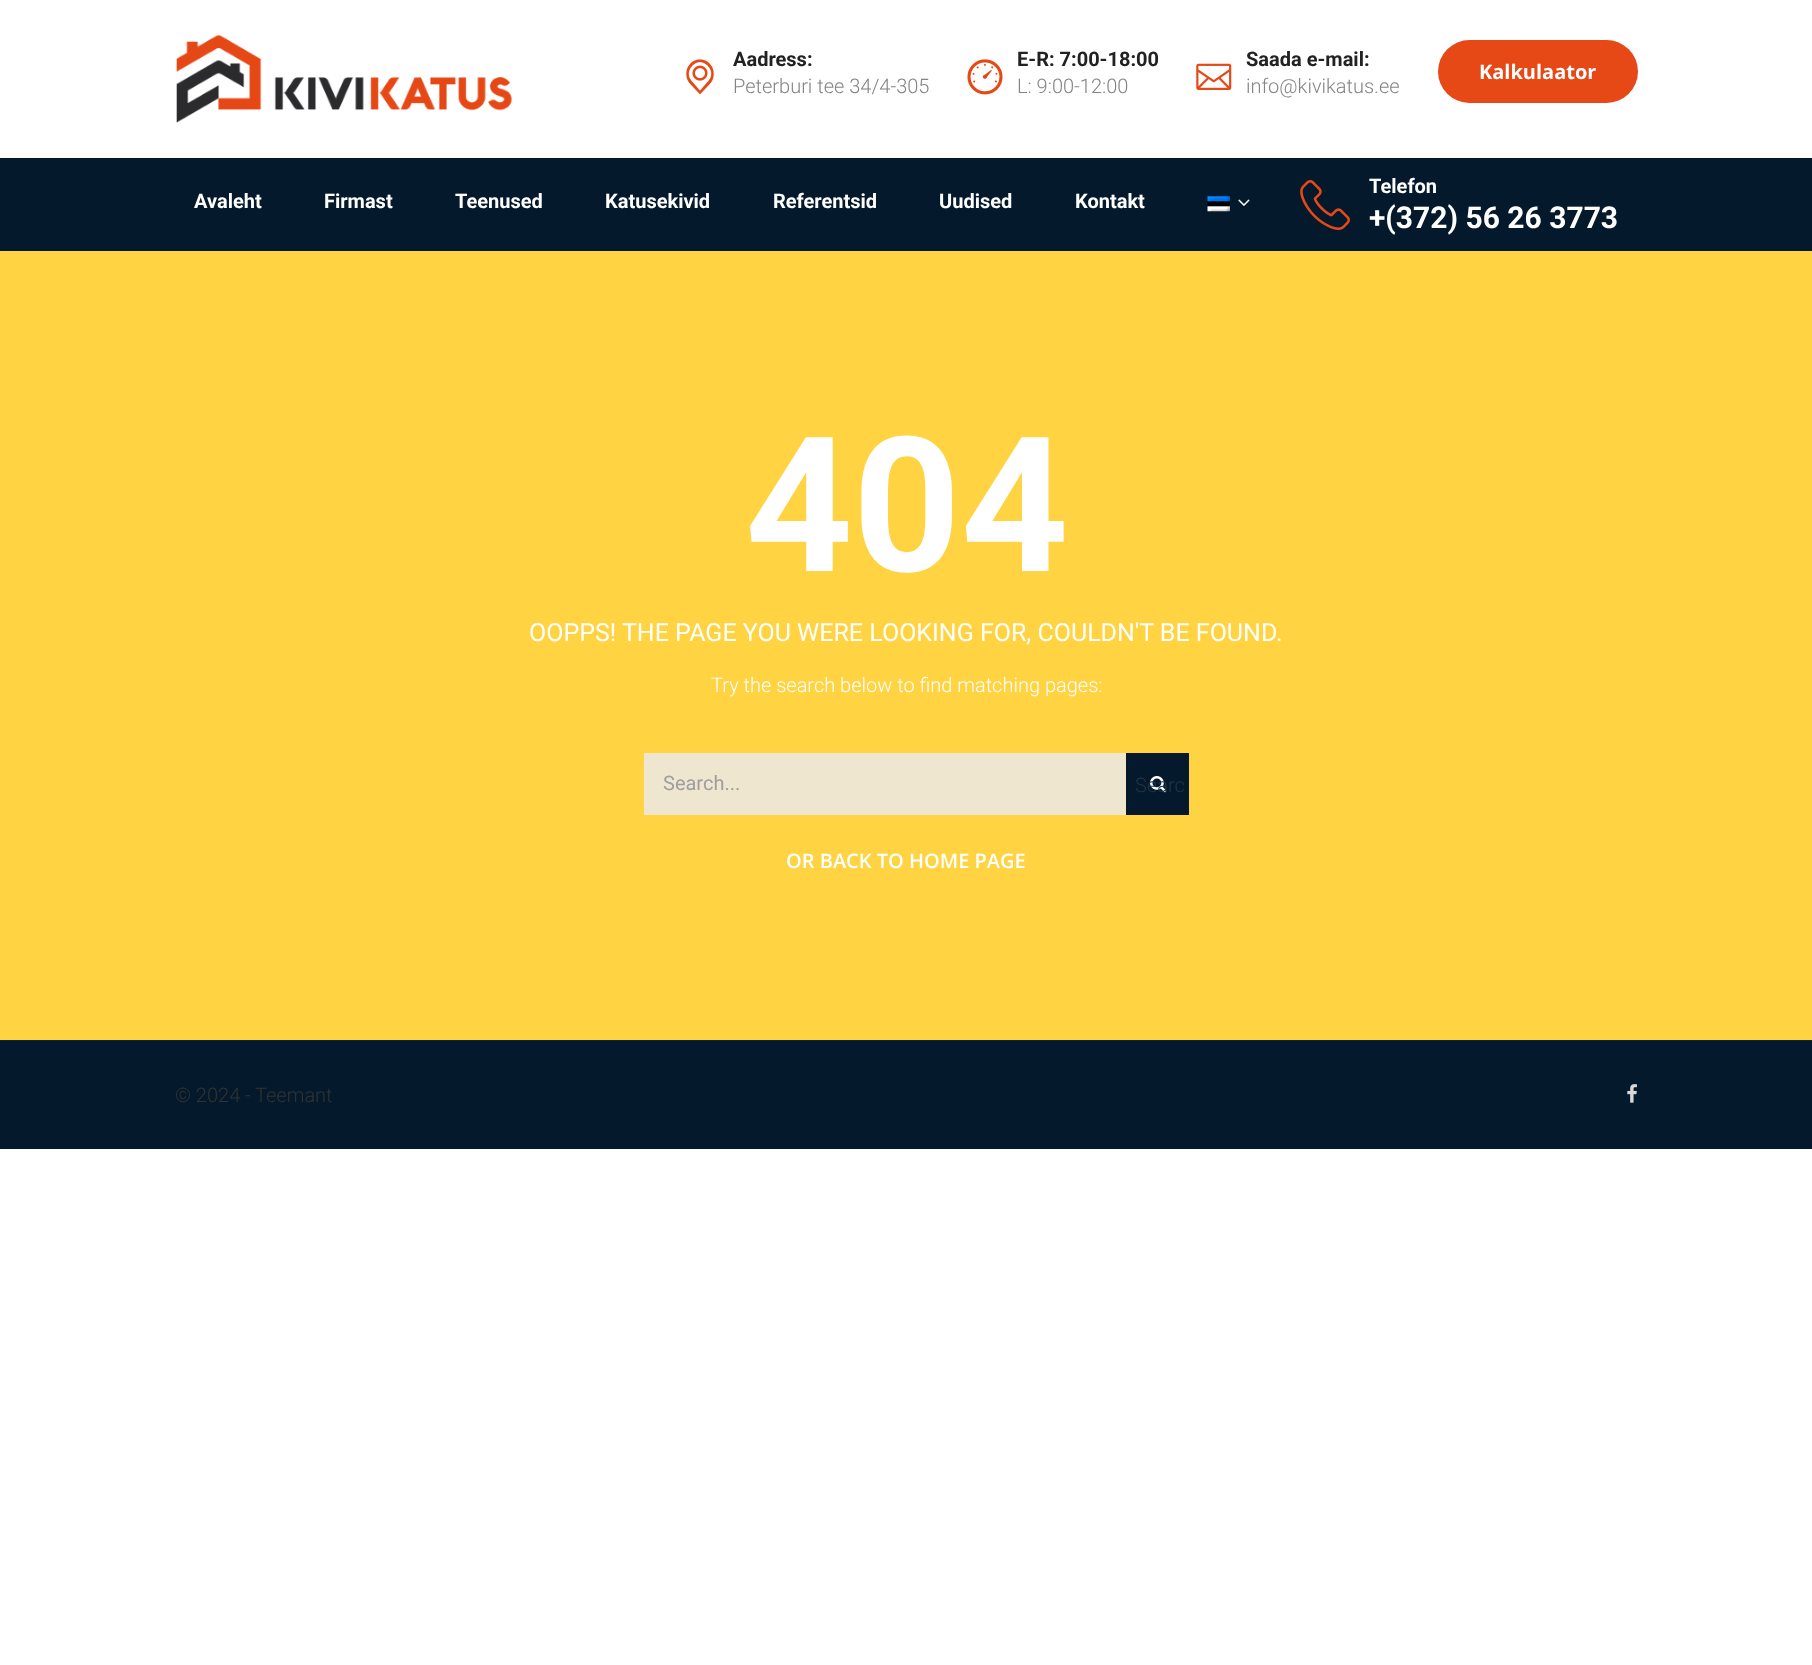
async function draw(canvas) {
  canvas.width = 1812;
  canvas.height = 1665;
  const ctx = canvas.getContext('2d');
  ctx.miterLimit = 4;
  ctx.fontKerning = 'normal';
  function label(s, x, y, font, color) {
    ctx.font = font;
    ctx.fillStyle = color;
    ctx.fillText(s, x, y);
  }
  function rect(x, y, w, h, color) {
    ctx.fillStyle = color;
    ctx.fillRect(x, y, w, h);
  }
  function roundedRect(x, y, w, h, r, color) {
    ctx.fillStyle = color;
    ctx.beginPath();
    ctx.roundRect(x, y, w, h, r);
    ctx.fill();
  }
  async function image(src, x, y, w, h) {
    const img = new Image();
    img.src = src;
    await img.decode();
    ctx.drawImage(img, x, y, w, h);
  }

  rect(0, 0, 1812, 1665, '#fff');
  await image('assets/img1.png', 176, 34, 337, 89);
  await image('assets/img2.png', 686, 59, 28, 36);
  label('Aadress:', 733, 66, 'bold 20px Roboto', '#222');
  label('Peterburi tee 34/4-305', 733, 93, '300 20px Roboto', '#848484');
  await image('assets/img3.png', 967, 59, 36, 36);
  label('E-R: 7:00-18:00', 1017, 66, 'bold 20px Roboto', '#222');
  label('L: 9:00-12:00', 1017, 93, '300 20px Roboto', '#848484');
  await image('assets/img4.png', 1196, 63, 36, 27);
  label('Saada e-mail:', 1246, 66, 'bold 20px Roboto', '#222');
  label('info@kivikatus.ee', 1246, 93, '300 20px Roboto', '#848484');
  roundedRect(1438, 40, 200, 63, 31.5, '#e64816');
  label('Kalkulaator', 1479, 79, 'bold 20px Open Sans', '#fff');
  rect(0, 158, 1812, 93, '#04192b');
  label('Avaleht', 194, 208, 'bold 20px Roboto', '#fff');
  label('Firmast', 324, 208, 'bold 20px Roboto', '#fff');
  label('Teenused', 455, 208, 'bold 20px Roboto', '#fff');
  label('Katusekivid', 605, 208, 'bold 20px Roboto', '#fff');
  label('Referentsid', 773, 208, 'bold 20px Roboto', '#fff');
  label('Uudised', 939, 208, 'bold 20px Roboto', '#fff');
  label('Kontakt', 1075, 208, 'bold 20px Roboto', '#fff');
  await image('assets/img5.png', 1207, 196, 23, 16);
  await image('assets/img6.png', 1238, 199, 12, 7);
  await image('assets/img7.png', 1300, 180, 50, 50);
  label('Telefon', 1369, 193, 'bold 20px Roboto', '#fff');
  label('+(372) 56 26 3773', 1369, 228, 'bold 30px Roboto', '#fff');
  rect(0, 251, 1812, 789, '#ffd341');
  label('404', 745, 571, 'bold 188px Roboto', '#fff');
  label('OOPPS! THE PAGE YOU WERE LOOKING FOR, COULDN\'T BE FOUND.', 529, 641, '25px Roboto', '#fff');
  label('Try the search below to find matching pages:', 711, 692, '300 20px Roboto', '#fff');
  rect(644, 753, 482, 62, '#eee6cf');
  label('Search...', 663, 790, '20px Roboto', '#9e9e9e');
  rect(1126, 753, 63, 62, '#04192b');
  await image('assets/img8.png', 1150, 776, 17, 17);
  label('Searc', 1135, 792, '300 20px Roboto', '#213444');
  label('OR BACK TO HOME PAGE', 786, 868, '600 20px Open Sans', '#fff');
  rect(0, 1041, 1812, 108, '#04192b');
  rect(0, 1040, 1812, 1, '#0a253d');
  label('© 2024 -', 175, 1102, '300 20px Roboto', '#333');
  label('Teemant', 255, 1102, '300 20px Roboto', '#333');
  await image('assets/img9.png', 1627, 1084, 10, 19);
}

draw(document.querySelector('canvas'));
